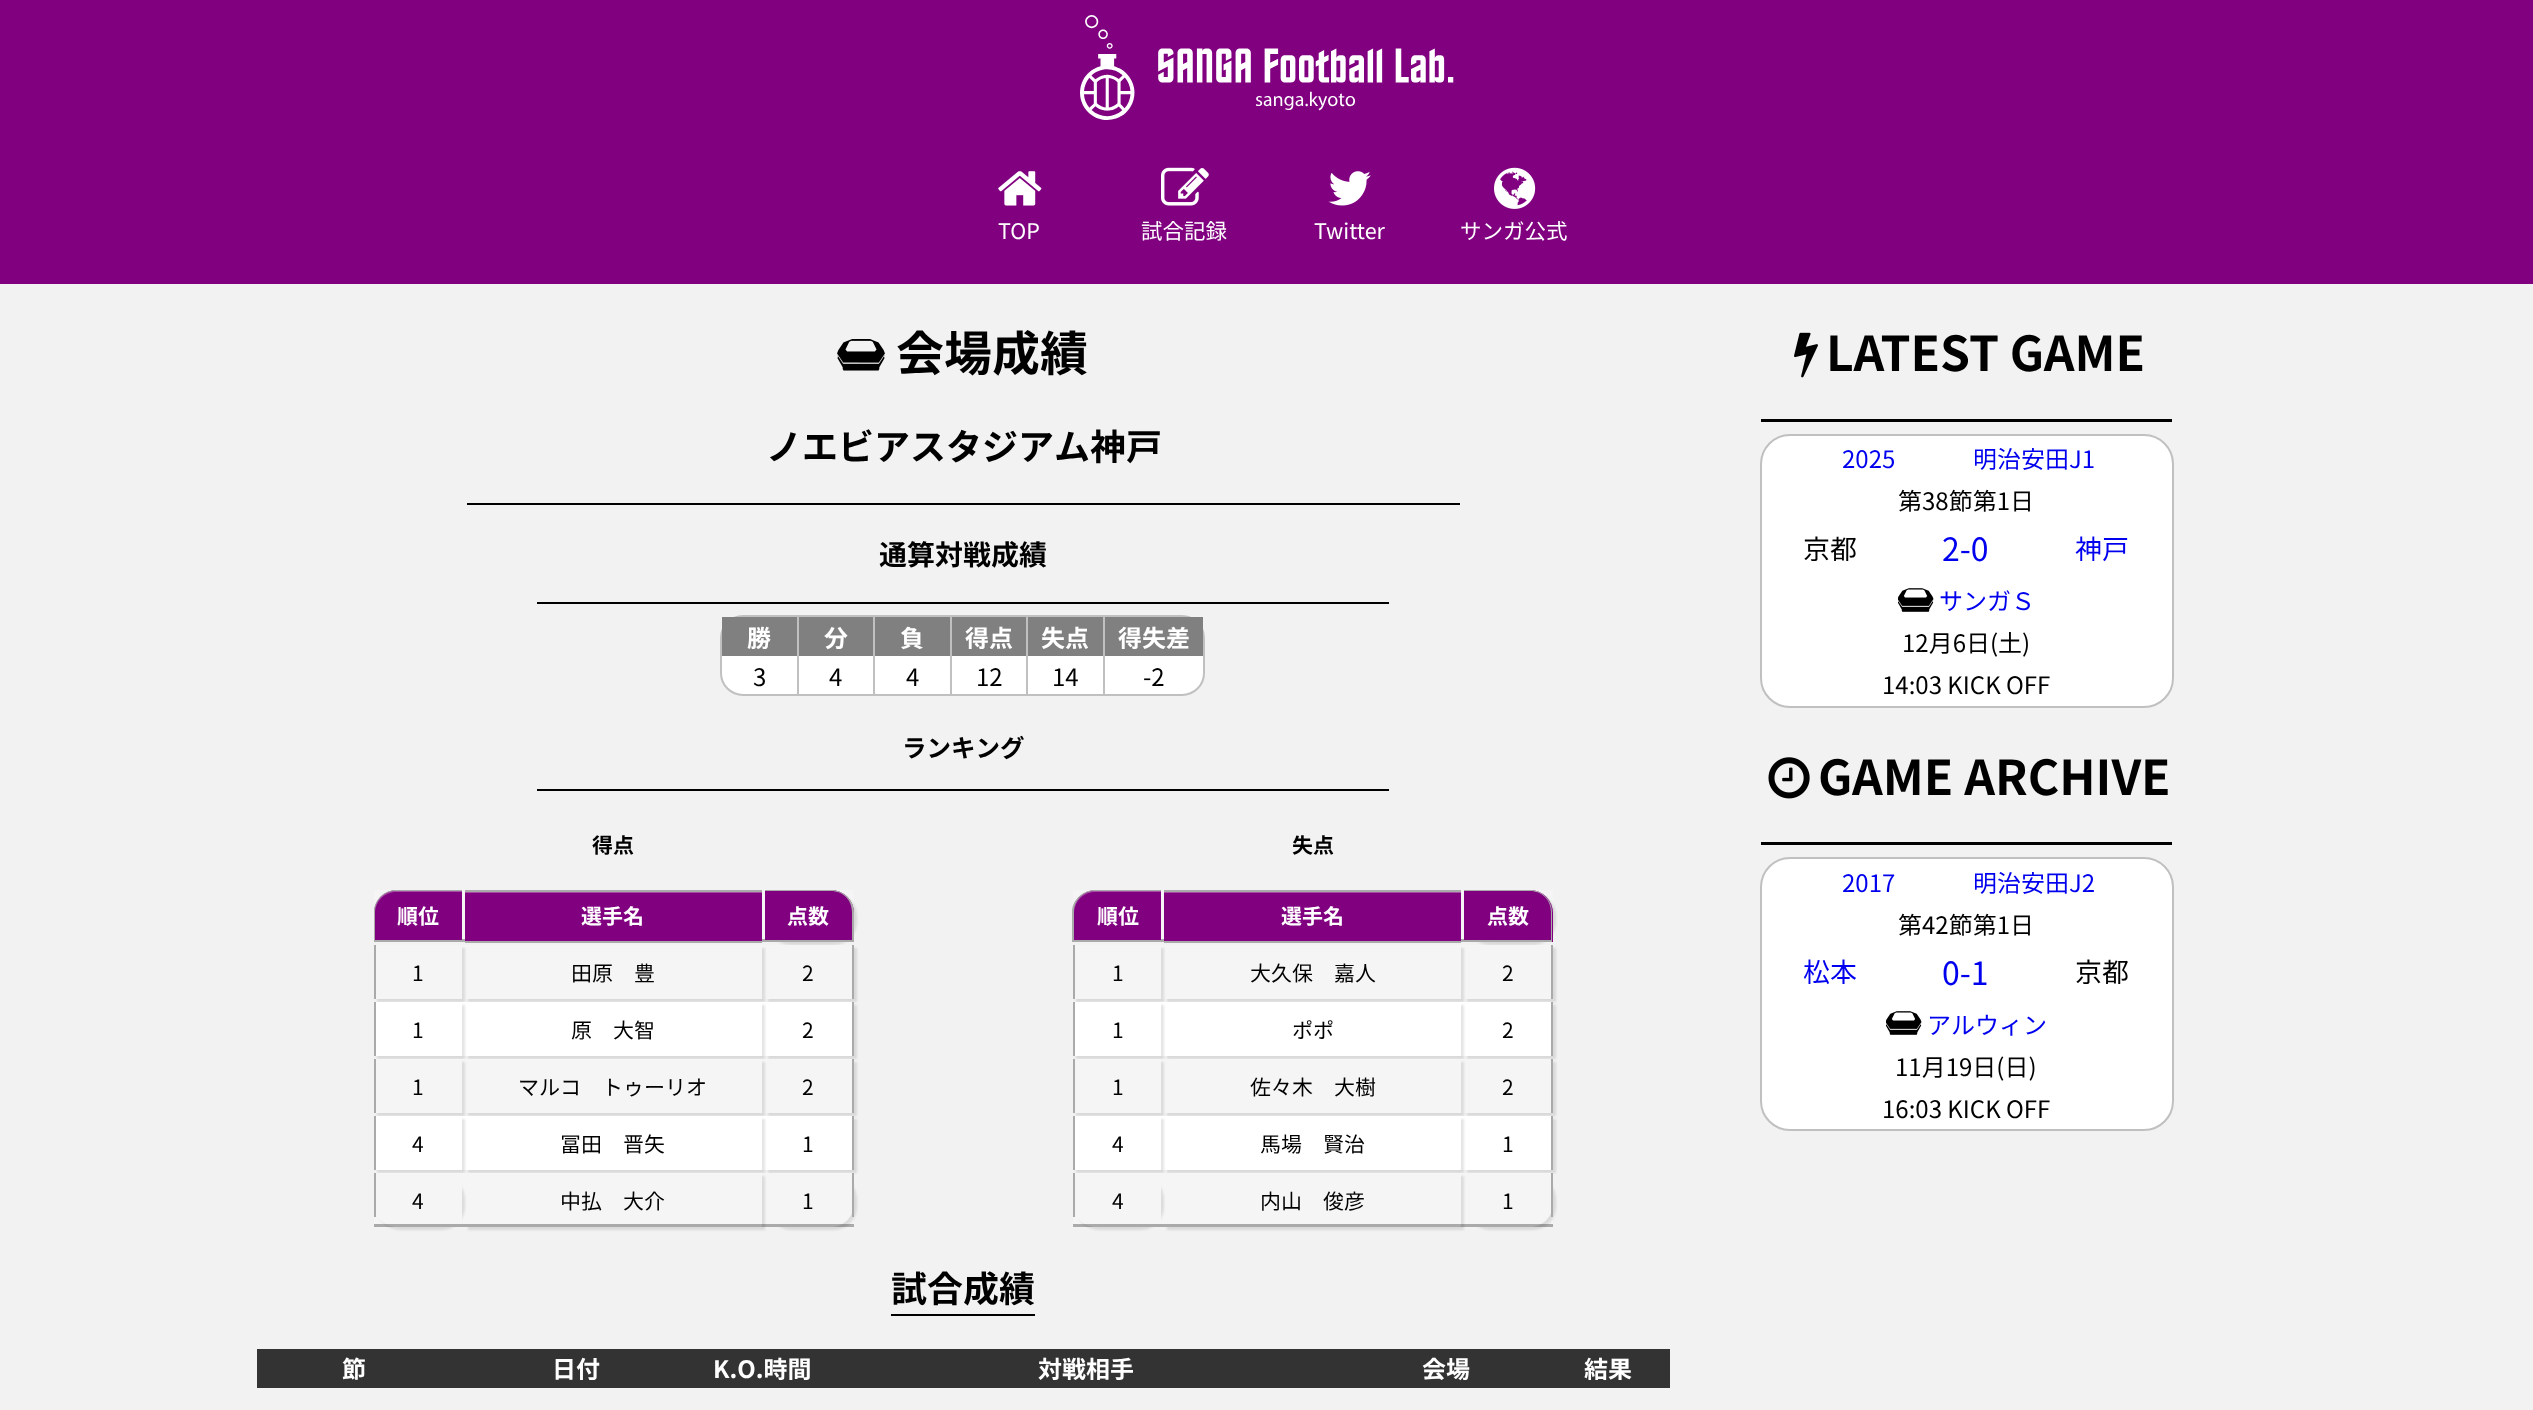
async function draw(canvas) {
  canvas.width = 2533;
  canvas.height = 1410;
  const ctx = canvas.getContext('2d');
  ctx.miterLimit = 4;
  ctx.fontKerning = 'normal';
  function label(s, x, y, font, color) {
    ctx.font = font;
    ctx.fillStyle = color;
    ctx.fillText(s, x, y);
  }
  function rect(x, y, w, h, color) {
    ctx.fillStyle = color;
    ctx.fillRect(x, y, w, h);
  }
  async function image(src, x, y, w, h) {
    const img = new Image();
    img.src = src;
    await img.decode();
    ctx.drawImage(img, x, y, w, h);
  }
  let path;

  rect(0, 0, 2533, 1410, '#f2f2f2');
  rect(0, 0, 2533, 284, '#800080');
  await image('assets/img1.png', 1080, 15, 374, 105);
  await image('assets/img2.png', 998, 171, 44, 35);
  label('TOP', 998, 239, '21.5px Noto Sans JP', '#fff');
  await image('assets/img3.png', 1161, 167, 48, 39);
  label('試合記録', 1141, 239, '21.5px Noto Sans JP', '#fff');
  await image('assets/img4.png', 1328, 171, 43, 35);
  label('Twitter', 1314, 239, '21.5px Noto Sans JP', '#fff');
  await image('assets/img5.png', 1494, 167, 42, 42);
  label('サンガ公式', 1460, 239, '21.5px Noto Sans JP', '#fff');
  await image('assets/img6.png', 837, 339, 48, 32);
  label('会場成績', 896, 371, 'bold 48px Noto Sans JP', '#000');
  label('ノエビアスタジアム神戸', 766, 460, 'bold 36px Noto Sans JP', '#000');
  rect(467, 503, 993, 2, '#000');
  label('通算対戦成績', 879, 565, 'bold 28px Noto Sans JP', '#000');
  rect(537, 602, 852, 2, '#000');
  ctx.fillStyle = '#fff';
  ctx.beginPath();
  ctx.roundRect(721, 616, 483, 79, 22);
  ctx.fill();
  ctx.strokeStyle = '#c0c0c0';
  ctx.lineWidth = 2;
  ctx.stroke();
  rect(722, 617, 481, 39, '#808080');
  label('勝', 747, 647, 'bold 24px Noto Sans JP', '#fff');
  label('分', 824, 647, 'bold 24px Noto Sans JP', '#fff');
  label('負', 900, 647, 'bold 24px Noto Sans JP', '#fff');
  label('得点', 965, 647, 'bold 24px Noto Sans JP', '#fff');
  label('失点', 1041, 647, 'bold 24px Noto Sans JP', '#fff');
  label('得失差', 1118, 647, 'bold 24px Noto Sans JP', '#fff');
  rect(797, 617, 2, 79, '#c0c0c0');
  label('3', 753, 686, '24px Noto Sans JP', '#000');
  rect(873, 617, 2, 79, '#c0c0c0');
  label('4', 829, 686, '24px Noto Sans JP', '#000');
  rect(950, 617, 2, 79, '#c0c0c0');
  label('4', 906, 686, '24px Noto Sans JP', '#000');
  rect(1026, 617, 2, 79, '#c0c0c0');
  label('12', 976, 686, '24px Noto Sans JP', '#000');
  rect(1103, 617, 2, 79, '#c0c0c0');
  label('14', 1052, 686, '24px Noto Sans JP', '#000');
  label('-2', 1143, 686, '24px Noto Sans JP', '#000');
  label('ランキング', 902, 757, 'bold 24.5px Noto Sans JP', '#000');
  rect(537, 789, 852, 2, '#000');
  label('得点', 592, 853, 'bold 21px Noto Sans JP', '#000');
  rect(374, 890, 480, 49, '#f5f5f5');
  rect(462, 939, 303, 3, '#aaa');
  ctx.fillStyle = '#800080';
  ctx.beginPath();
  ctx.roundRect(374, 890, 88, 52, [23, 0, 0, 0]);
  ctx.fill();
  ctx.fillStyle = '#a64da6';
  path = new Path2D('M396 892H462V891H396C384 891 375 900 375 912V914C375 902 384 892 396 892Z');
  ctx.fill(path);
  ctx.fillStyle = '#aaa';
  path = new Path2D('M396 890H462V942H374V912C374 900 384 890 396 890ZM396 891H462V940H375V912C375 900 384 891 396 891Z');
  ctx.fill(path, 'evenodd');
  label('順位', 397, 924, 'bold 21px Noto Sans JP', '#fff');
  rect(465, 893, 297, 48, '#800080');
  rect(465, 892, 297, 1, '#a64da6');
  rect(465, 890, 297, 2, '#aaa');
  rect(465, 942, 297, 1, '#aaa');
  label('選手名', 581, 924, 'bold 21px Noto Sans JP', '#fff');
  ctx.fillStyle = '#0000001a';
  ctx.filter = 'blur(1px)';
  ctx.beginPath();
  ctx.roundRect(768, 893, 89, 52, 23);
  ctx.fill();
  ctx.filter = 'none';
  ctx.fillStyle = '#800080';
  ctx.beginPath();
  ctx.roundRect(765, 890, 89, 52, [0, 23, 0, 0]);
  ctx.fill();
  ctx.fillStyle = '#aaa';
  path = new Path2D('M765 890H831C843 890 854 900 854 912V942H765ZM765 891H831C843 891 852 900 852 912V940H765Z');
  ctx.fill(path, 'evenodd');
  label('点数', 787, 924, 'bold 21px Noto Sans JP', '#fff');
  rect(376, 945, 476, 54, '#f5f5f5');
  ctx.save();
  path = new Path2D('M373 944H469V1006H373ZM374 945H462V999H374Z');
  ctx.clip(path, 'evenodd');
  ctx.fillStyle = '#0000001a';
  ctx.filter = 'blur(1px)';
  ctx.beginPath();
  ctx.rect(377, 948, 88, 54);
  ctx.fill();
  ctx.filter = 'none';
  ctx.restore();
  rect(374, 945, 2, 54, '#aaa');
  label('1', 412, 981, '21px Noto Sans JP', '#000');
  ctx.save();
  path = new Path2D('M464 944H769V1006H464ZM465 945H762V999H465Z');
  ctx.clip(path, 'evenodd');
  ctx.fillStyle = '#0000001a';
  ctx.filter = 'blur(1px)';
  ctx.beginPath();
  ctx.rect(468, 948, 297, 54);
  ctx.fill();
  ctx.filter = 'none';
  ctx.restore();
  label('田原　豊', 571, 981, '21px Noto Sans JP', '#000');
  ctx.save();
  path = new Path2D('M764 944H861V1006H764ZM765 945H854V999H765Z');
  ctx.clip(path, 'evenodd');
  ctx.fillStyle = '#0000001a';
  ctx.filter = 'blur(1px)';
  ctx.beginPath();
  ctx.rect(768, 948, 89, 54);
  ctx.fill();
  ctx.filter = 'none';
  ctx.restore();
  rect(852, 945, 2, 54, '#aaa');
  label('2', 802, 981, '21px Noto Sans JP', '#000');
  rect(376, 1002, 476, 54, '#fff');
  ctx.save();
  path = new Path2D('M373 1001H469V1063H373ZM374 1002H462V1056H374Z');
  ctx.clip(path, 'evenodd');
  ctx.fillStyle = '#0000001a';
  ctx.filter = 'blur(1px)';
  ctx.beginPath();
  ctx.rect(377, 1005, 88, 54);
  ctx.fill();
  ctx.filter = 'none';
  ctx.restore();
  rect(374, 1002, 2, 54, '#aaa');
  label('1', 412, 1038, '21px Noto Sans JP', '#000');
  ctx.save();
  path = new Path2D('M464 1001H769V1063H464ZM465 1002H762V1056H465Z');
  ctx.clip(path, 'evenodd');
  ctx.fillStyle = '#0000001a';
  ctx.filter = 'blur(1px)';
  ctx.beginPath();
  ctx.rect(468, 1005, 297, 54);
  ctx.fill();
  ctx.filter = 'none';
  ctx.restore();
  label('原　大智', 571, 1038, '21px Noto Sans JP', '#000');
  ctx.save();
  path = new Path2D('M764 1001H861V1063H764ZM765 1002H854V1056H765Z');
  ctx.clip(path, 'evenodd');
  ctx.fillStyle = '#0000001a';
  ctx.filter = 'blur(1px)';
  ctx.beginPath();
  ctx.rect(768, 1005, 89, 54);
  ctx.fill();
  ctx.filter = 'none';
  ctx.restore();
  rect(852, 1002, 2, 54, '#aaa');
  label('2', 802, 1038, '21px Noto Sans JP', '#000');
  rect(376, 1059, 476, 54, '#f5f5f5');
  ctx.save();
  path = new Path2D('M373 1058H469V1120H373ZM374 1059H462V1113H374Z');
  ctx.clip(path, 'evenodd');
  ctx.fillStyle = '#0000001a';
  ctx.filter = 'blur(1px)';
  ctx.beginPath();
  ctx.rect(377, 1062, 88, 54);
  ctx.fill();
  ctx.filter = 'none';
  ctx.restore();
  rect(374, 1059, 2, 54, '#aaa');
  label('1', 412, 1095, '21px Noto Sans JP', '#000');
  ctx.save();
  path = new Path2D('M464 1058H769V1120H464ZM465 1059H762V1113H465Z');
  ctx.clip(path, 'evenodd');
  ctx.fillStyle = '#0000001a';
  ctx.filter = 'blur(1px)';
  ctx.beginPath();
  ctx.rect(468, 1062, 297, 54);
  ctx.fill();
  ctx.filter = 'none';
  ctx.restore();
  label('マルコ　トゥーリオ', 518, 1095, '21px Noto Sans JP', '#000');
  ctx.save();
  path = new Path2D('M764 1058H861V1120H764ZM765 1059H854V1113H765Z');
  ctx.clip(path, 'evenodd');
  ctx.fillStyle = '#0000001a';
  ctx.filter = 'blur(1px)';
  ctx.beginPath();
  ctx.rect(768, 1062, 89, 54);
  ctx.fill();
  ctx.filter = 'none';
  ctx.restore();
  rect(852, 1059, 2, 54, '#aaa');
  label('2', 802, 1095, '21px Noto Sans JP', '#000');
  rect(376, 1116, 476, 54, '#fff');
  ctx.save();
  path = new Path2D('M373 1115H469V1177H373ZM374 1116H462V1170H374Z');
  ctx.clip(path, 'evenodd');
  ctx.fillStyle = '#0000001a';
  ctx.filter = 'blur(1px)';
  ctx.beginPath();
  ctx.rect(377, 1119, 88, 54);
  ctx.fill();
  ctx.filter = 'none';
  ctx.restore();
  rect(374, 1116, 2, 54, '#aaa');
  label('4', 412, 1152, '21px Noto Sans JP', '#000');
  ctx.save();
  path = new Path2D('M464 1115H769V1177H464ZM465 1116H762V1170H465Z');
  ctx.clip(path, 'evenodd');
  ctx.fillStyle = '#0000001a';
  ctx.filter = 'blur(1px)';
  ctx.beginPath();
  ctx.rect(468, 1119, 297, 54);
  ctx.fill();
  ctx.filter = 'none';
  ctx.restore();
  label('冨田　晋矢', 560, 1152, '21px Noto Sans JP', '#000');
  ctx.save();
  path = new Path2D('M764 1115H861V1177H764ZM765 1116H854V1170H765Z');
  ctx.clip(path, 'evenodd');
  ctx.fillStyle = '#0000001a';
  ctx.filter = 'blur(1px)';
  ctx.beginPath();
  ctx.rect(768, 1119, 89, 54);
  ctx.fill();
  ctx.filter = 'none';
  ctx.restore();
  rect(852, 1116, 2, 54, '#aaa');
  label('1', 802, 1152, '21px Noto Sans JP', '#000');
  rect(374, 1173, 480, 51, '#f5f5f5');
  rect(374, 1224, 480, 3, '#aaa');
  ctx.save();
  path = new Path2D('M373 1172H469V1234H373ZM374 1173H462V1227H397C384.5 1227 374 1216.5 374 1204Z');
  ctx.clip(path, 'evenodd');
  ctx.fillStyle = '#0000001a';
  ctx.filter = 'blur(1px)';
  ctx.beginPath();
  ctx.roundRect(377, 1176, 88, 54, 23);
  ctx.fill();
  ctx.filter = 'none';
  ctx.restore();
  rect(374, 1173, 2, 44, '#aaa');
  label('4', 412, 1209, '21px Noto Sans JP', '#000');
  ctx.save();
  path = new Path2D('M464 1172H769V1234H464ZM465 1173H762V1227H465Z');
  ctx.clip(path, 'evenodd');
  ctx.fillStyle = '#0000001a';
  ctx.filter = 'blur(1px)';
  ctx.beginPath();
  ctx.rect(468, 1176, 297, 54);
  ctx.fill();
  ctx.filter = 'none';
  ctx.restore();
  label('中払　大介', 560, 1209, '21px Noto Sans JP', '#000');
  ctx.save();
  path = new Path2D('M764 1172H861V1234H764ZM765 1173H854V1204C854 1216.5 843.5 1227 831 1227H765Z');
  ctx.clip(path, 'evenodd');
  ctx.fillStyle = '#0000001a';
  ctx.filter = 'blur(1px)';
  ctx.beginPath();
  ctx.roundRect(768, 1176, 89, 54, 23);
  ctx.fill();
  ctx.filter = 'none';
  ctx.restore();
  rect(852, 1173, 2, 44, '#aaa');
  label('1', 802, 1209, '21px Noto Sans JP', '#000');
  label('失点', 1292, 853, 'bold 21px Noto Sans JP', '#000');
  rect(1073, 890, 480, 49, '#f5f5f5');
  rect(1161, 939, 303, 3, '#aaa');
  ctx.fillStyle = '#800080';
  ctx.beginPath();
  ctx.roundRect(1073, 890, 88, 52, [23, 0, 0, 0]);
  ctx.fill();
  ctx.fillStyle = '#a64da6';
  path = new Path2D('M1095 892H1161V891H1095C1083 891 1074 900 1074 912V914C1074 902 1083 892 1095 892Z');
  ctx.fill(path);
  ctx.fillStyle = '#aaa';
  path = new Path2D('M1095 890H1161V942H1072V912C1072 900 1083 890 1095 890ZM1095 891H1161V940H1074V912C1074 900 1083 891 1095 891Z');
  ctx.fill(path, 'evenodd');
  label('順位', 1097, 924, 'bold 21px Noto Sans JP', '#fff');
  rect(1164, 893, 297, 48, '#800080');
  rect(1164, 892, 297, 1, '#a64da6');
  rect(1164, 890, 297, 2, '#aaa');
  rect(1164, 942, 297, 1, '#aaa');
  label('選手名', 1281, 924, 'bold 21px Noto Sans JP', '#fff');
  ctx.fillStyle = '#0000001a';
  ctx.filter = 'blur(1px)';
  ctx.beginPath();
  ctx.roundRect(1467, 893, 89, 52, 23);
  ctx.fill();
  ctx.filter = 'none';
  ctx.fillStyle = '#800080';
  ctx.beginPath();
  ctx.roundRect(1464, 890, 89, 52, [0, 23, 0, 0]);
  ctx.fill();
  ctx.fillStyle = '#aaa';
  path = new Path2D('M1464 890H1530C1542 890 1552 900 1552 912V942H1464ZM1464 891H1530C1542 891 1551 900 1551 912V940H1464Z');
  ctx.fill(path, 'evenodd');
  label('点数', 1487, 924, 'bold 21px Noto Sans JP', '#fff');
  rect(1075, 945, 476, 54, '#f5f5f5');
  ctx.save();
  path = new Path2D('M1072 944H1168V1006H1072ZM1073 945H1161V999H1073Z');
  ctx.clip(path, 'evenodd');
  ctx.fillStyle = '#0000001a';
  ctx.filter = 'blur(1px)';
  ctx.beginPath();
  ctx.rect(1076, 948, 88, 54);
  ctx.fill();
  ctx.filter = 'none';
  ctx.restore();
  rect(1073, 945, 2, 54, '#aaa');
  label('1', 1112, 981, '21px Noto Sans JP', '#000');
  ctx.save();
  path = new Path2D('M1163 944H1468V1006H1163ZM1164 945H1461V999H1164Z');
  ctx.clip(path, 'evenodd');
  ctx.fillStyle = '#0000001a';
  ctx.filter = 'blur(1px)';
  ctx.beginPath();
  ctx.rect(1167, 948, 297, 54);
  ctx.fill();
  ctx.filter = 'none';
  ctx.restore();
  label('大久保　嘉人', 1250, 981, '21px Noto Sans JP', '#000');
  ctx.save();
  path = new Path2D('M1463 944H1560V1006H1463ZM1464 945H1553V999H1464Z');
  ctx.clip(path, 'evenodd');
  ctx.fillStyle = '#0000001a';
  ctx.filter = 'blur(1px)';
  ctx.beginPath();
  ctx.rect(1467, 948, 89, 54);
  ctx.fill();
  ctx.filter = 'none';
  ctx.restore();
  rect(1551, 945, 2, 54, '#aaa');
  label('2', 1502, 981, '21px Noto Sans JP', '#000');
  rect(1075, 1002, 476, 54, '#fff');
  ctx.save();
  path = new Path2D('M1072 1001H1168V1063H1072ZM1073 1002H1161V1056H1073Z');
  ctx.clip(path, 'evenodd');
  ctx.fillStyle = '#0000001a';
  ctx.filter = 'blur(1px)';
  ctx.beginPath();
  ctx.rect(1076, 1005, 88, 54);
  ctx.fill();
  ctx.filter = 'none';
  ctx.restore();
  rect(1073, 1002, 2, 54, '#aaa');
  label('1', 1112, 1038, '21px Noto Sans JP', '#000');
  ctx.save();
  path = new Path2D('M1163 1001H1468V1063H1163ZM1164 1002H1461V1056H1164Z');
  ctx.clip(path, 'evenodd');
  ctx.fillStyle = '#0000001a';
  ctx.filter = 'blur(1px)';
  ctx.beginPath();
  ctx.rect(1167, 1005, 297, 54);
  ctx.fill();
  ctx.filter = 'none';
  ctx.restore();
  label('ポポ', 1292, 1038, '21px Noto Sans JP', '#000');
  ctx.save();
  path = new Path2D('M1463 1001H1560V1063H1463ZM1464 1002H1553V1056H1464Z');
  ctx.clip(path, 'evenodd');
  ctx.fillStyle = '#0000001a';
  ctx.filter = 'blur(1px)';
  ctx.beginPath();
  ctx.rect(1467, 1005, 89, 54);
  ctx.fill();
  ctx.filter = 'none';
  ctx.restore();
  rect(1551, 1002, 2, 54, '#aaa');
  label('2', 1502, 1038, '21px Noto Sans JP', '#000');
  rect(1075, 1059, 476, 54, '#f5f5f5');
  ctx.save();
  path = new Path2D('M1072 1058H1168V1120H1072ZM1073 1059H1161V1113H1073Z');
  ctx.clip(path, 'evenodd');
  ctx.fillStyle = '#0000001a';
  ctx.filter = 'blur(1px)';
  ctx.beginPath();
  ctx.rect(1076, 1062, 88, 54);
  ctx.fill();
  ctx.filter = 'none';
  ctx.restore();
  rect(1073, 1059, 2, 54, '#aaa');
  label('1', 1112, 1095, '21px Noto Sans JP', '#000');
  ctx.save();
  path = new Path2D('M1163 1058H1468V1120H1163ZM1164 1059H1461V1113H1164Z');
  ctx.clip(path, 'evenodd');
  ctx.fillStyle = '#0000001a';
  ctx.filter = 'blur(1px)';
  ctx.beginPath();
  ctx.rect(1167, 1062, 297, 54);
  ctx.fill();
  ctx.filter = 'none';
  ctx.restore();
  label('佐々木　大樹', 1250, 1095, '21px Noto Sans JP', '#000');
  ctx.save();
  path = new Path2D('M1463 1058H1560V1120H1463ZM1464 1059H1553V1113H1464Z');
  ctx.clip(path, 'evenodd');
  ctx.fillStyle = '#0000001a';
  ctx.filter = 'blur(1px)';
  ctx.beginPath();
  ctx.rect(1467, 1062, 89, 54);
  ctx.fill();
  ctx.filter = 'none';
  ctx.restore();
  rect(1551, 1059, 2, 54, '#aaa');
  label('2', 1502, 1095, '21px Noto Sans JP', '#000');
  rect(1075, 1116, 476, 54, '#fff');
  ctx.save();
  path = new Path2D('M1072 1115H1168V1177H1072ZM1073 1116H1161V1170H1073Z');
  ctx.clip(path, 'evenodd');
  ctx.fillStyle = '#0000001a';
  ctx.filter = 'blur(1px)';
  ctx.beginPath();
  ctx.rect(1076, 1119, 88, 54);
  ctx.fill();
  ctx.filter = 'none';
  ctx.restore();
  rect(1073, 1116, 2, 54, '#aaa');
  label('4', 1112, 1152, '21px Noto Sans JP', '#000');
  ctx.save();
  path = new Path2D('M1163 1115H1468V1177H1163ZM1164 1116H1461V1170H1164Z');
  ctx.clip(path, 'evenodd');
  ctx.fillStyle = '#0000001a';
  ctx.filter = 'blur(1px)';
  ctx.beginPath();
  ctx.rect(1167, 1119, 297, 54);
  ctx.fill();
  ctx.filter = 'none';
  ctx.restore();
  label('馬場　賢治', 1260, 1152, '21px Noto Sans JP', '#000');
  ctx.save();
  path = new Path2D('M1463 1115H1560V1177H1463ZM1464 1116H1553V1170H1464Z');
  ctx.clip(path, 'evenodd');
  ctx.fillStyle = '#0000001a';
  ctx.filter = 'blur(1px)';
  ctx.beginPath();
  ctx.rect(1467, 1119, 89, 54);
  ctx.fill();
  ctx.filter = 'none';
  ctx.restore();
  rect(1551, 1116, 2, 54, '#aaa');
  label('1', 1502, 1152, '21px Noto Sans JP', '#000');
  rect(1073, 1173, 480, 51, '#f5f5f5');
  rect(1073, 1224, 480, 3, '#aaa');
  ctx.save();
  path = new Path2D('M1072 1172H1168V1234H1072ZM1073 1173H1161V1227H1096C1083.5 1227 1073 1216.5 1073 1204Z');
  ctx.clip(path, 'evenodd');
  ctx.fillStyle = '#0000001a';
  ctx.filter = 'blur(1px)';
  ctx.beginPath();
  ctx.roundRect(1076, 1176, 88, 54, 23);
  ctx.fill();
  ctx.filter = 'none';
  ctx.restore();
  rect(1073, 1173, 2, 44, '#aaa');
  label('4', 1112, 1209, '21px Noto Sans JP', '#000');
  ctx.save();
  path = new Path2D('M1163 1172H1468V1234H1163ZM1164 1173H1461V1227H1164Z');
  ctx.clip(path, 'evenodd');
  ctx.fillStyle = '#0000001a';
  ctx.filter = 'blur(1px)';
  ctx.beginPath();
  ctx.rect(1167, 1176, 297, 54);
  ctx.fill();
  ctx.filter = 'none';
  ctx.restore();
  label('内山　俊彦', 1260, 1209, '21px Noto Sans JP', '#000');
  ctx.save();
  path = new Path2D('M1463 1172H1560V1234H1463ZM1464 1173H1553V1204C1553 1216.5 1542.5 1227 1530 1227H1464Z');
  ctx.clip(path, 'evenodd');
  ctx.fillStyle = '#0000001a';
  ctx.filter = 'blur(1px)';
  ctx.beginPath();
  ctx.roundRect(1467, 1176, 89, 54, 23);
  ctx.fill();
  ctx.filter = 'none';
  ctx.restore();
  rect(1551, 1173, 2, 44, '#aaa');
  label('1', 1502, 1209, '21px Noto Sans JP', '#000');
  rect(891, 1314, 144, 2, '#000');
  label('試合成績', 891, 1302, 'bold 36px Noto Sans JP', '#000');
  rect(257, 1349, 1413, 39, '#333');
  label('節', 342, 1378, 'bold 24px Noto Sans JP', '#fff');
  label('日付', 552, 1378, 'bold 24px Noto Sans JP', '#fff');
  label('K.O.時間', 713, 1378, 'bold 24px Noto Sans JP', '#fff');
  label('対戦相手', 1038, 1378, 'bold 24px Noto Sans JP', '#fff');
  label('会場', 1422, 1378, 'bold 24px Noto Sans JP', '#fff');
  label('結果', 1584, 1378, 'bold 24px Noto Sans JP', '#fff');
  await image('assets/img7.png', 1794, 332, 24, 46);
  label('LATEST GAME', 1826, 371, 'bold 48px Noto Sans JP', '#000');
  rect(1761, 419, 411, 3, '#000');
  ctx.fillStyle = '#fff';
  ctx.beginPath();
  ctx.roundRect(1761, 435, 412, 272, 29);
  ctx.fill();
  ctx.stroke();
  label('2025', 1842, 468, '24px Noto Sans JP', '#00e');
  label('明治安田J1', 1973, 468, '24px Noto Sans JP', '#00e');
  label('第38節第1日', 1898, 510, '24px Noto Sans JP', '#000');
  label('京都', 1803, 559, '27px Noto Sans JP', '#000');
  label('2-0', 1942, 561, '32px Noto Sans JP', '#00e');
  label('神戸', 2075, 559, '27px Noto Sans JP', '#00e');
  await image('assets/img8.png', 1898, 588, 36, 24);
  label('サンガＳ', 1939, 610, '24px Noto Sans JP', '#00e');
  label('12月6日(土)', 1902, 652, '24px Noto Sans JP', '#000');
  label('14:03 KICK OFF', 1882, 694, '24px Noto Sans JP', '#000');
  await image('assets/img9.png', 1768, 757, 42, 42);
  label('GAME ARCHIVE', 1818, 795, 'bold 48px Noto Sans JP', '#000');
  rect(1761, 842, 411, 3, '#000');
  ctx.fillStyle = '#fff';
  ctx.beginPath();
  ctx.roundRect(1761, 858, 412, 272, 29);
  ctx.fill();
  ctx.stroke();
  label('2017', 1842, 892, '24px Noto Sans JP', '#00e');
  label('明治安田J2', 1973, 892, '24px Noto Sans JP', '#00e');
  label('第42節第1日', 1898, 934, '24px Noto Sans JP', '#000');
  label('松本', 1803, 982, '27px Noto Sans JP', '#00e');
  label('0-1', 1942, 985, '32px Noto Sans JP', '#00e');
  label('京都', 2075, 982, '27px Noto Sans JP', '#000');
  await image('assets/img8.png', 1886, 1011, 36, 24);
  label('アルウィン', 1927, 1034, '24px Noto Sans JP', '#00e');
  label('11月19日(日)', 1895, 1076, '24px Noto Sans JP', '#000');
  label('16:03 KICK OFF', 1882, 1118, '24px Noto Sans JP', '#000');
}

draw(document.querySelector('canvas'));
